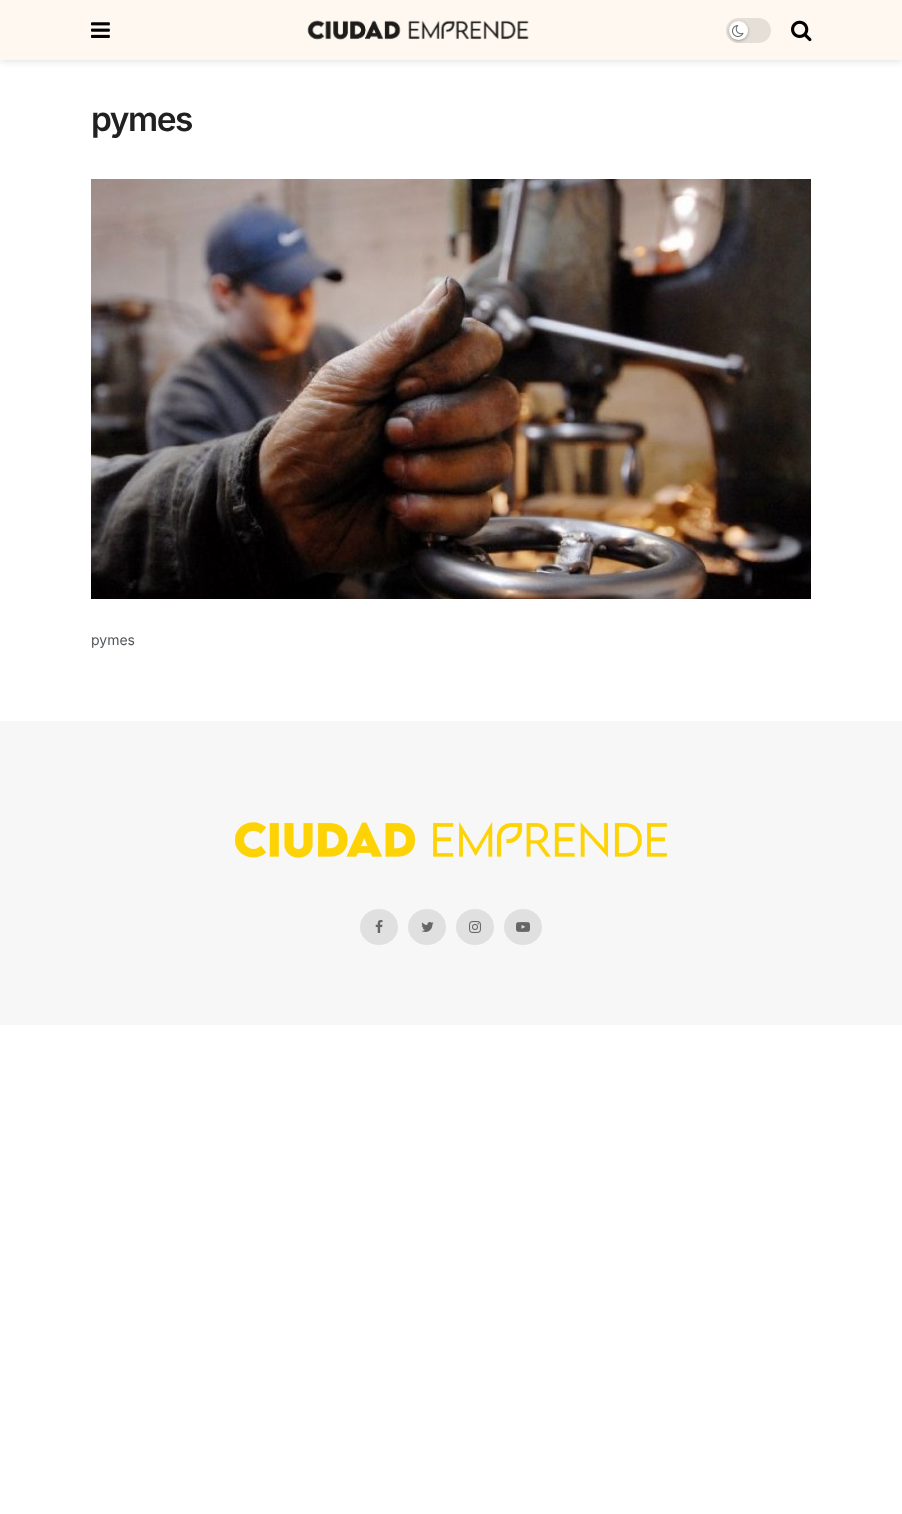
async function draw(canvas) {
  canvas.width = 902;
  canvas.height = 1514;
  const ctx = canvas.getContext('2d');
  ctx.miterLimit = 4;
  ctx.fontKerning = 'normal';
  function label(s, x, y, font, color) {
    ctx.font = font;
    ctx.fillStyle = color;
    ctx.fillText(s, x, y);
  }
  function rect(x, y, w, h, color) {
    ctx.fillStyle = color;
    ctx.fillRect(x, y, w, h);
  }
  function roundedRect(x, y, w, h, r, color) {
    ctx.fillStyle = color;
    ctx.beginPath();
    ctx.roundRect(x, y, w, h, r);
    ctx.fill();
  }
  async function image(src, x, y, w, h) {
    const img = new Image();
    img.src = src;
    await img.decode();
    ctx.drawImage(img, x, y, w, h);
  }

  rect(0, 0, 902, 1514, '#fff');
  ctx.fillStyle = '#0000001a';
  ctx.filter = 'blur(3px)';
  ctx.beginPath();
  ctx.rect(0, 2, 902, 60);
  ctx.fill();
  ctx.filter = 'none';
  rect(0, 0, 902, 60, '#fff8f0');
  await image('assets/img1.png', 91, 22, 19, 16);
  await image('assets/img2.png', 307, 20, 222, 20);
  roundedRect(726, 18, 45, 25, 12.5, '#e6dfd8');
  ctx.fillStyle = '#0000004d';
  ctx.filter = 'blur(1.5px)';
  ctx.beginPath();
  ctx.roundRect(729, 22, 19, 19, 9.5);
  ctx.fill();
  ctx.filter = 'none';
  ctx.fillStyle = '#fff';
  ctx.beginPath();
  ctx.arc(738.5, 30.5, 9.5, 0, 2 * Math.PI);
  ctx.fill();
  await image('assets/img3.png', 732, 25, 12, 12);
  await image('assets/img4.png', 791, 20, 21, 22);
  ctx.letterSpacing = '-1.5px';
  label('pymes', 91, 131, '600 33.5px Inter', '#212121');
  await image('assets/img5.png', 91, 179, 720, 420);
  ctx.letterSpacing = '0px';
  label('pymes', 91, 645, '14px Inter', '#53585c');
  rect(0, 721, 902, 304, '#f7f7f7');
  await image('assets/img6.png', 235, 822, 433, 36);
  ctx.fillStyle = '#e0e0e0';
  ctx.beginPath();
  ctx.ellipse(379, 927, 19, 18, 0, 0, 2 * Math.PI);
  ctx.fill();
  await image('assets/img7.png', 375, 920, 8, 13);
  ctx.beginPath();
  ctx.ellipse(427, 927, 19, 18, 0, 0, 2 * Math.PI);
  ctx.fill();
  await image('assets/img8.png', 421, 922, 13, 10);
  ctx.beginPath();
  ctx.ellipse(475, 927, 19, 18, 0, 0, 2 * Math.PI);
  ctx.fill();
  await image('assets/img9.png', 469, 921, 12, 12);
  ctx.beginPath();
  ctx.ellipse(523, 927, 19, 18, 0, 0, 2 * Math.PI);
  ctx.fill();
  await image('assets/img10.png', 516, 922, 14, 10);
}

draw(document.querySelector('canvas'));
